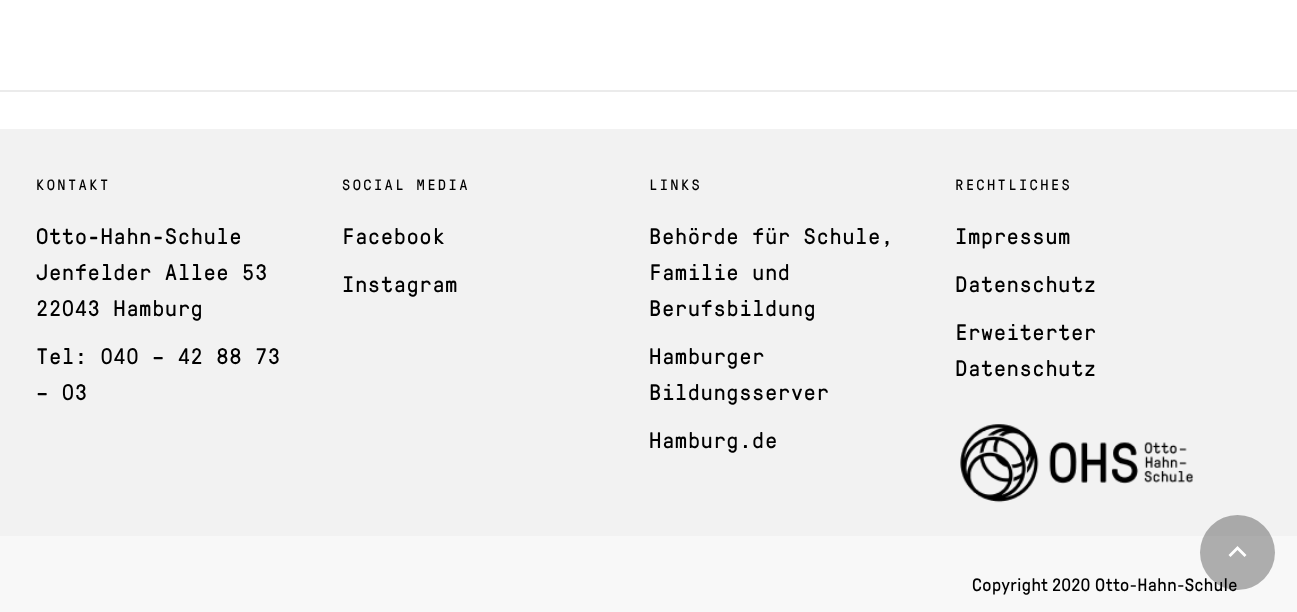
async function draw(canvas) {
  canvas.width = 1297;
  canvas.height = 612;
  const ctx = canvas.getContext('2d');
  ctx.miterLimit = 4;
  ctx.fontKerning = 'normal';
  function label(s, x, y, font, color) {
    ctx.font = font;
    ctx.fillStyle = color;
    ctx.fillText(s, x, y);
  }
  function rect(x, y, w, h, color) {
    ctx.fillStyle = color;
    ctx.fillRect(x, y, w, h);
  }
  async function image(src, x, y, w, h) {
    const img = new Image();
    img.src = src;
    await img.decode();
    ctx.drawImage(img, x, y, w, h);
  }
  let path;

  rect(0, 0, 1297, 612, '#fff');
  ctx.fillStyle = '#ebebeb';
  path = new Path2D('M0 90V92H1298V2V90Z');
  ctx.fill(path);
  rect(0, 129, 1297, 407, '#f2f2f2');
  ctx.letterSpacing = '2.4px';
  label('KONTAKT', 36, 190, '15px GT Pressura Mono', '#000');
  ctx.letterSpacing = '0.5px';
  label('Otto-Hahn-Schule', 36, 244, '22.5px GT Pressura Mono', '#000');
  label('Jenfelder Allee 53', 36, 280, '22.5px GT Pressura Mono', '#000');
  label('22043 Hamburg', 36, 316, '22.5px GT Pressura Mono', '#000');
  label('Tel: 040 – 42 88 73', 36, 364, '22.5px GT Pressura Mono', '#000');
  label('– 03', 36, 400, '22.5px GT Pressura Mono', '#000');
  ctx.letterSpacing = '2.4px';
  label('SOCIAL MEDIA', 342, 190, '15px GT Pressura Mono', '#000');
  ctx.letterSpacing = '0.5px';
  label('Facebook', 342, 244, '22.5px GT Pressura Mono', '#000');
  label('Instagram', 342, 292, '22.5px GT Pressura Mono', '#000');
  ctx.letterSpacing = '2.4px';
  label('LINKS', 649, 190, '15px GT Pressura Mono', '#000');
  ctx.letterSpacing = '0.5px';
  label('Behörde für Schule,', 649, 244, '22.5px GT Pressura Mono', '#000');
  label('Familie und', 649, 280, '22.5px GT Pressura Mono', '#000');
  label('Berufsbildung', 649, 316, '22.5px GT Pressura Mono', '#000');
  label('Hamburger', 649, 364, '22.5px GT Pressura Mono', '#000');
  label('Bildungsserver', 649, 400, '22.5px GT Pressura Mono', '#000');
  label('Hamburg.de', 649, 448, '22.5px GT Pressura Mono', '#000');
  ctx.letterSpacing = '2.4px';
  label('RECHTLICHES', 955, 190, '15px GT Pressura Mono', '#000');
  ctx.letterSpacing = '0.5px';
  label('Impressum', 955, 244, '22.5px GT Pressura Mono', '#000');
  label('Datenschutz', 955, 292, '22.5px GT Pressura Mono', '#000');
  label('Erweiterter', 955, 340, '22.5px GT Pressura Mono', '#000');
  label('Datenschutz', 955, 376, '22.5px GT Pressura Mono', '#000');
  await image('assets/img1.png', 960, 424, 234, 79);
  rect(0, 536, 1297, 76, '#f8f8f8');
  label('Copyright 2020 Otto-Hahn-Schule', 972, 591, '18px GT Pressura', '#000');
  ctx.fillStyle = '#0000004d';
  ctx.beginPath();
  ctx.arc(1237.5, 552.5, 37.5, 0, 2 * Math.PI);
  ctx.fill();
  ctx.fillStyle = '#fff';
  path = new Path2D('M1230.5 557L1228.5 555L1237.5 546L1246.5 555L1244.5 557L1237.5 550Z');
  ctx.fill(path);
}

draw(document.querySelector('canvas'));
